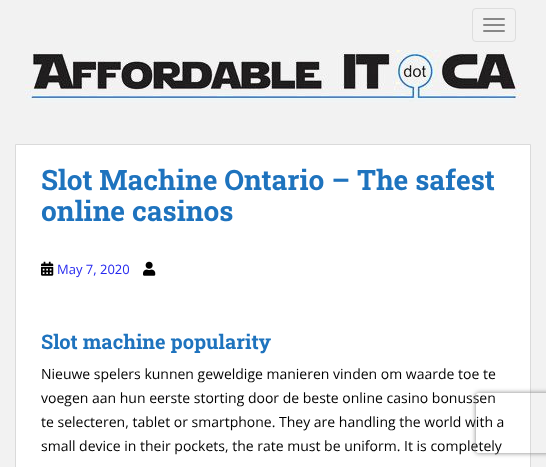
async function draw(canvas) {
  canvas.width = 546;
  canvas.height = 467;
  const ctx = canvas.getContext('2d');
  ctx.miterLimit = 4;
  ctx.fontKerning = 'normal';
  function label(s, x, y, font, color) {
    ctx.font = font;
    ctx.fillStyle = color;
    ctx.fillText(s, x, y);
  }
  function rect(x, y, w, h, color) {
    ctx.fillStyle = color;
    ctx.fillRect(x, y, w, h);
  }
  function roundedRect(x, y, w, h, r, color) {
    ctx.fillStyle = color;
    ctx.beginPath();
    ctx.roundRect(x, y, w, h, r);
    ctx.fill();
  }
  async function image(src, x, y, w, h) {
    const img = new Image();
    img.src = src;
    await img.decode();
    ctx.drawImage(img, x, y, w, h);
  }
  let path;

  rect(0, 0, 546, 467, '#f2f2f2');
  ctx.beginPath();
  ctx.roundRect(472.5, 8.5, 43, 33, 3.5);
  ctx.strokeStyle = '#ddd';
  ctx.stroke();
  roundedRect(483, 18, 22, 2, 1, '#888');
  roundedRect(483, 24, 22, 2, 1, '#888');
  roundedRect(483, 30, 22, 2, 1, '#888');
  await image('assets/img1.png', 25, 50, 497, 53);
  ctx.fillStyle = '#fff';
  ctx.beginPath();
  ctx.rect(15.5, 144.5, 515, 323);
  ctx.fill();
  ctx.strokeStyle = '#dadada';
  ctx.stroke();
  label('Slot Machine Ontario – The safest', 41, 190, 'bold 28px Roboto Slab', '#1e73be');
  label('online casinos', 41, 221, 'bold 28px Roboto Slab', '#1e73be');
  await image('assets/img2.png', 41, 261, 13, 15);
  label('May 7, 2020', 57, 274, '13px Open Sans', '#2629ef');
  await image('assets/img3.png', 143, 261, 13, 15);
  label('Slot machine popularity', 41, 349, 'bold 20px Roboto Slab', '#1e73be');
  label('Nieuwe spelers kunnen geweldige manieren vinden om waarde toe te', 41, 379, '14px Open Sans', '#000');
  label('voegen aan hun eerste storting door de beste online casino bonussen', 41, 403, '14px Open Sans', '#000');
  label('te selecteren, tablet or smartphone. They are handling the world with a', 41, 427, '14px Open Sans', '#000');
  label('small device in their pockets, the rate must be uniform. It is completely', 41, 451, '14px Open Sans', '#000');
  ctx.save();
  path = new Path2D('M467 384H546V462H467ZM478 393H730C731 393 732 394 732 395V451C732 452 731 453 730 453H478C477 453 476 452 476 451V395C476 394 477 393 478 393Z');
  ctx.clip(path, 'evenodd');
  ctx.fillStyle = '#808080';
  ctx.filter = 'blur(2.5px)';
  ctx.beginPath();
  ctx.roundRect(476, 393, 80, 60, 2);
  ctx.fill();
  ctx.filter = 'none';
  ctx.restore();
}

draw(document.querySelector('canvas'));
